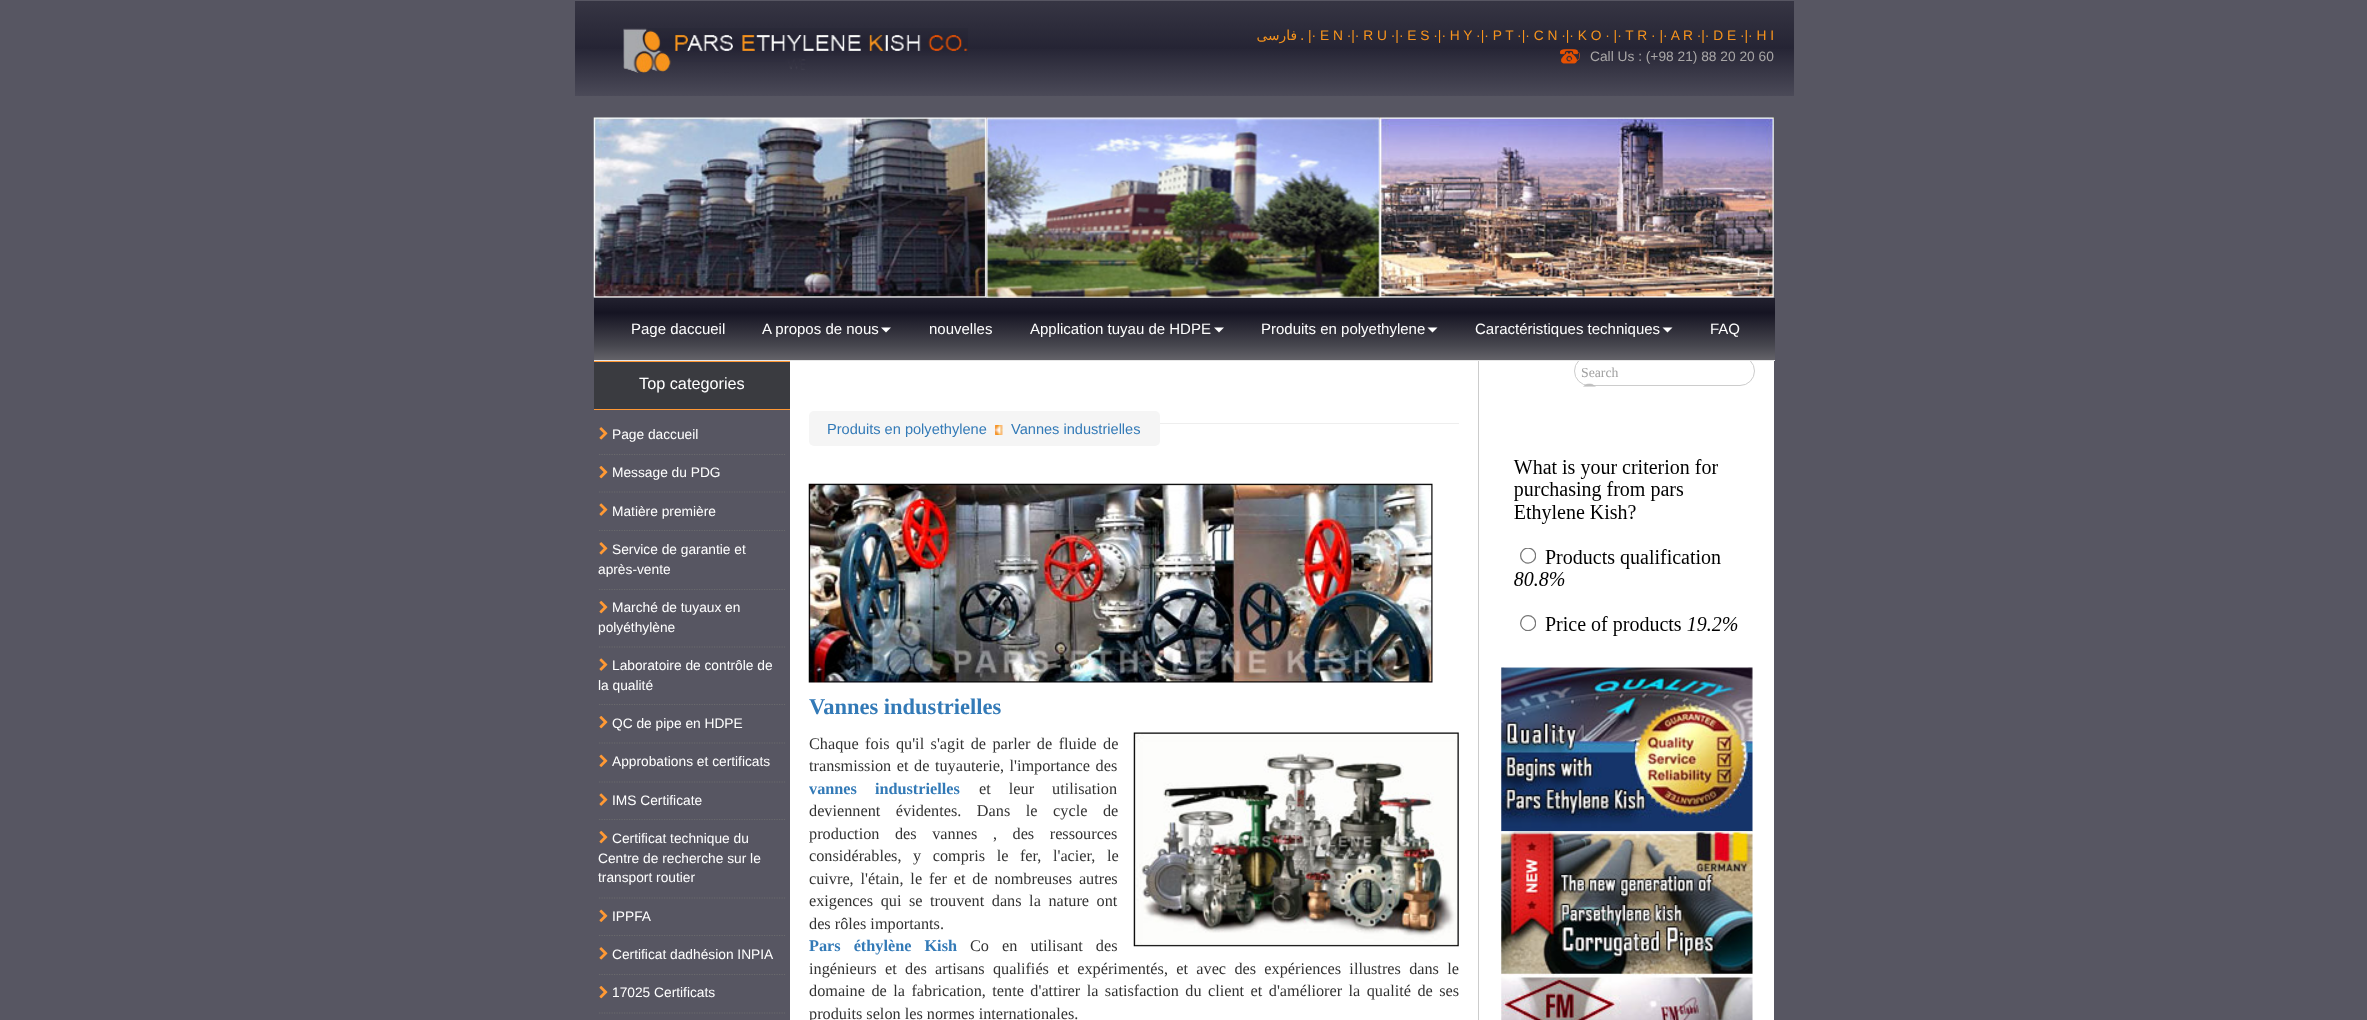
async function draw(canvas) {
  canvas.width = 2367;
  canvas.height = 1020;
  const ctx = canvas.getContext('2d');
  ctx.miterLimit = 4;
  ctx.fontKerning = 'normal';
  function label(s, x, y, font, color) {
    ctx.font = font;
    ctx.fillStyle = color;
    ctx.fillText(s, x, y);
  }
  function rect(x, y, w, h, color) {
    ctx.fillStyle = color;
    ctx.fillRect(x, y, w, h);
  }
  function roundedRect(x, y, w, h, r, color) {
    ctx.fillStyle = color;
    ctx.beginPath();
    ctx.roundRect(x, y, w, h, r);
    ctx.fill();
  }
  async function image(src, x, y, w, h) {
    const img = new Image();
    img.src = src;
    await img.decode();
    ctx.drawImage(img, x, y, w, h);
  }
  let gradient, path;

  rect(0, 0, 2367, 1020, '#575662');
  gradient = ctx.createLinearGradient(1184, 1.2, 1184, 96);
  gradient.addColorStop(0.01, '#363543');
  gradient.addColorStop(0.5, '#252434');
  gradient.addColorStop(0.5, '#2e2d3b');
  gradient.addColorStop(0.51, '#272636');
  gradient.addColorStop(1, '#4b4a58');
  ctx.fillStyle = gradient;
  ctx.fillRect(575, 1, 1219, 95);
  await image('assets/img1.png', 623, 28, 345, 45);
  ctx.direction = 'rtl';
  label('فارسی', 1297, 40, '13.75px DejaVu Sans', '#f7941d');
  ctx.direction = 'ltr';
  label('.', 1300, 40, '13.75px DejaVu Sans', '#f7941d');
  label('|· E N ·|· R U ·|· E S ·|· H Y ·|· P T ·|· C N ·|· K O · |· T R · |· A R ·|· D E ·|· H I', 1308, 40, '13.75px Liberation Sans', '#f7941d');
  await image('assets/img2.png', 1560, 48, 20, 16);
  label('Call Us : (+98 21) 88 20 20 60', 1590, 61, '13.75px Liberation Sans', '#a9a7a7');
  await image('assets/img3.png', 593, 117, 394, 181);
  await image('assets/img4.png', 986, 117, 394, 181);
  await image('assets/img5.png', 1380, 117, 394, 181);
  rect(1479, 361, 295, 659, '#fff');
  ctx.beginPath();
  ctx.roundRect(1574.5, 356.5, 180, 29, 14.5);
  ctx.strokeStyle = '#ccc';
  ctx.stroke();
  gradient = ctx.createLinearGradient(1184, 297, 1184, 360);
  gradient.addColorStop(0, '#232230');
  gradient.addColorStop(0.25, '#151422');
  gradient.addColorStop(0.52, '#2f2e39');
  gradient.addColorStop(0.77, '#47474f');
  gradient.addColorStop(1, '#646369');
  ctx.fillStyle = gradient;
  ctx.fillRect(594, 298, 1181, 62);
  rect(594, 360, 1181, 1, '#e7e7e7');
  label('Page daccueil', 631, 334, '15px Liberation Sans', '#fff');
  label('A propos de nous', 762, 334, '15px Liberation Sans', '#fff');
  path = new Path2D('M881 327.5H891L886 332.5Z');
  ctx.fill(path);
  label('nouvelles', 929, 334, '15px Liberation Sans', '#fff');
  label('Application tuyau de HDPE', 1030, 334, '15px Liberation Sans', '#fff');
  path = new Path2D('M1214 327.5H1224L1219 332.5Z');
  ctx.fill(path);
  label('Produits en polyethylene', 1261, 334, '15px Liberation Sans', '#fff');
  path = new Path2D('M1427.5 327.5H1437.5L1432.5 332.5Z');
  ctx.fill(path);
  label('Caractéristiques techniques', 1475, 334, '15px Liberation Sans', '#fff');
  path = new Path2D('M1662.5 327.5H1672.5L1667.5 332.5Z');
  ctx.fill(path);
  label('FAQ', 1710, 334, '15px Liberation Sans', '#fff');
  label('Search', 1581, 377, '13.75px Liberation Serif', '#a0a0a0');
  await image('assets/img6.png', 1583, 383, 13, 4);
  await image('assets/img8.png', 1501, 667, 252, 165);
  await image('assets/img7.png', 1504, 386, 245, 282);
  await image('assets/img9.png', 1501, 831, 252, 144);
  await image('assets/img10.png', 1501, 975, 252, 45);
  rect(594, 362, 196, 47, '#3a3b40');
  rect(594, 361, 196, 1, '#ff9835');
  rect(594, 409, 196, 1, '#ff9835');
  label('Top categories', 639, 389, '16.25px Liberation Sans', '#fff');
  path = new Path2D('M599 454.5H785');
  ctx.strokeStyle = '#6a6a6c';
  ctx.lineWidth = 1.2;
  ctx.setLineDash([1.25, 1.25]);
  ctx.stroke(path);
  await image('assets/img11.png', 599, 427, 9, 13);
  label('Page daccueil', 612, 439, '13.75px Liberation Sans', '#fff');
  path = new Path2D('M599 492H785');
  ctx.stroke(path);
  await image('assets/img12.png', 599, 466, 9, 13);
  label('Message du PDG', 612, 477, '13.75px Liberation Sans', '#fff');
  path = new Path2D('M599 530.5H785');
  ctx.stroke(path);
  await image('assets/img13.png', 599, 503, 9, 13);
  label('Matière première', 612, 516, '13.75px Liberation Sans', '#fff');
  path = new Path2D('M599 589.5H785');
  ctx.stroke(path);
  await image('assets/img11.png', 599, 542, 9, 13);
  label('Service de garantie et', 612, 554, '13.75px Liberation Sans', '#fff');
  label('après-vente', 598, 574, '13.75px Liberation Sans', '#fff');
  path = new Path2D('M599 647H785');
  ctx.stroke(path);
  await image('assets/img12.png', 599, 601, 9, 13);
  label('Marché de tuyaux en', 612, 612, '13.75px Liberation Sans', '#fff');
  label('polyéthylène', 598, 632, '13.75px Liberation Sans', '#fff');
  path = new Path2D('M599 704.5H785');
  ctx.stroke(path);
  await image('assets/img13.png', 599, 658, 9, 13);
  label('Laboratoire de contrôle de', 612, 670, '13.75px Liberation Sans', '#fff');
  label('la qualité', 598, 690, '13.75px Liberation Sans', '#fff');
  path = new Path2D('M599 743H785');
  ctx.stroke(path);
  await image('assets/img12.png', 599, 716, 9, 13);
  label('QC de pipe en HDPE', 612, 728, '13.75px Liberation Sans', '#fff');
  path = new Path2D('M599 782H785');
  ctx.stroke(path);
  await image('assets/img14.png', 599, 754, 9, 13);
  label('Approbations et certificats', 612, 766, '13.75px Liberation Sans', '#fff');
  path = new Path2D('M599 819.5H785');
  ctx.stroke(path);
  await image('assets/img13.png', 599, 793, 9, 13);
  label('IMS Certificate', 612, 805, '13.75px Liberation Sans', '#fff');
  path = new Path2D('M599 898H785');
  ctx.stroke(path);
  await image('assets/img12.png', 599, 831, 9, 13);
  label('Certificat technique du', 612, 843, '13.75px Liberation Sans', '#fff');
  label('Centre de recherche sur le', 598, 863, '13.75px Liberation Sans', '#fff');
  label('transport routier', 598, 882, '13.75px Liberation Sans', '#fff');
  path = new Path2D('M599 935.5H785');
  ctx.stroke(path);
  await image('assets/img14.png', 599, 909, 9, 13);
  label('IPPFA', 612, 921, '13.75px Liberation Sans', '#fff');
  path = new Path2D('M599 974.5H785');
  ctx.stroke(path);
  await image('assets/img11.png', 599, 947, 9, 13);
  label('Certificat dadhésion INPIA', 612, 959, '13.75px Liberation Sans', '#fff');
  path = new Path2D('M599 1013H785');
  ctx.stroke(path);
  await image('assets/img12.png', 599, 986, 9, 13);
  label('17025 Certificats', 612, 997, '13.75px Liberation Sans', '#fff');
  rect(790, 361, 688, 659, '#fff');
  rect(1478, 361, 1, 659, '#ccc');
  rect(1160, 423, 299, 1, '#eee');
  roundedRect(809, 411, 351, 35, 5, '#f5f5f5');
  label('Produits en polyethylene', 827, 434, '14.6px Liberation Sans', '#337ab7');
  await image('assets/img15.png', 995, 425, 8, 10);
  label('Vannes industrielles', 1011, 434, '14.6px Liberation Sans', '#337ab7');
  await image('assets/img16.png', 808, 483, 625, 200);
  label('Vannes industrielles', 809, 714, 'bold 22.5px Liberation Serif', '#337ab7');
  ctx.wordSpacing = '2.4px';
  label('Chaque fois qu\'il s\'agit de parler de fluide de', 809, 749, '16.25px Liberation Serif', '#333');
  await image('assets/img17.png', 1133, 732, 326, 215);
  ctx.wordSpacing = '1.5px';
  label('transmission et de tuyauterie, l\'importance des', 809, 771, '16.25px Liberation Serif', '#333');
  ctx.wordSpacing = '14px';
  label('vannes industrielles', 809, 794, 'bold 16.25px Liberation Serif', '#337ab7');
  label('et leur utilisation', 979, 794, '16.25px Liberation Serif', '#333');
  ctx.wordSpacing = '11.5px';
  label('deviennent évidentes. Dans le cycle de', 809, 816, '16.25px Liberation Serif', '#333');
  label('production des vannes , des ressources', 809, 839, '16.25px Liberation Serif', '#333');
  ctx.wordSpacing = '7.5px';
  label('considérables, y compris le fer, l\'acier, le', 809, 861, '16.25px Liberation Serif', '#333');
  ctx.wordSpacing = '2.75px';
  label('cuivre, l\'étain, le fer et de nombreuses autres', 809, 884, '16.25px Liberation Serif', '#333');
  ctx.wordSpacing = '3.5px';
  label('exigences qui se trouvent dans la nature ont', 809, 906, '16.25px Liberation Serif', '#333');
  ctx.wordSpacing = '0px';
  label('des rôles importants.', 809, 929, '16.25px Liberation Serif', '#333');
  ctx.wordSpacing = '9px';
  label('Pars éthylène Kish', 809, 951, 'bold 16.25px Liberation Serif', '#337ab7');
  label('Co en utilisant des', 970, 951, '16.25px Liberation Serif', '#333');
  ctx.wordSpacing = '4.25px';
  label('ingénieurs et des artisans qualifiés et expérimentés, et avec des expériences illustres dans le', 809, 974, '16.25px Liberation Serif', '#333');
  ctx.wordSpacing = '2.4px';
  label('domaine de la fabrication, tente d\'attirer la satisfaction du client et d\'améliorer la qualité de ses', 809, 996, '16.25px Liberation Serif', '#333');
  ctx.wordSpacing = '0px';
  label('produits selon les normes internationales.', 809, 1019, '16.25px Liberation Serif', '#333');
}

draw(document.querySelector('canvas'));
